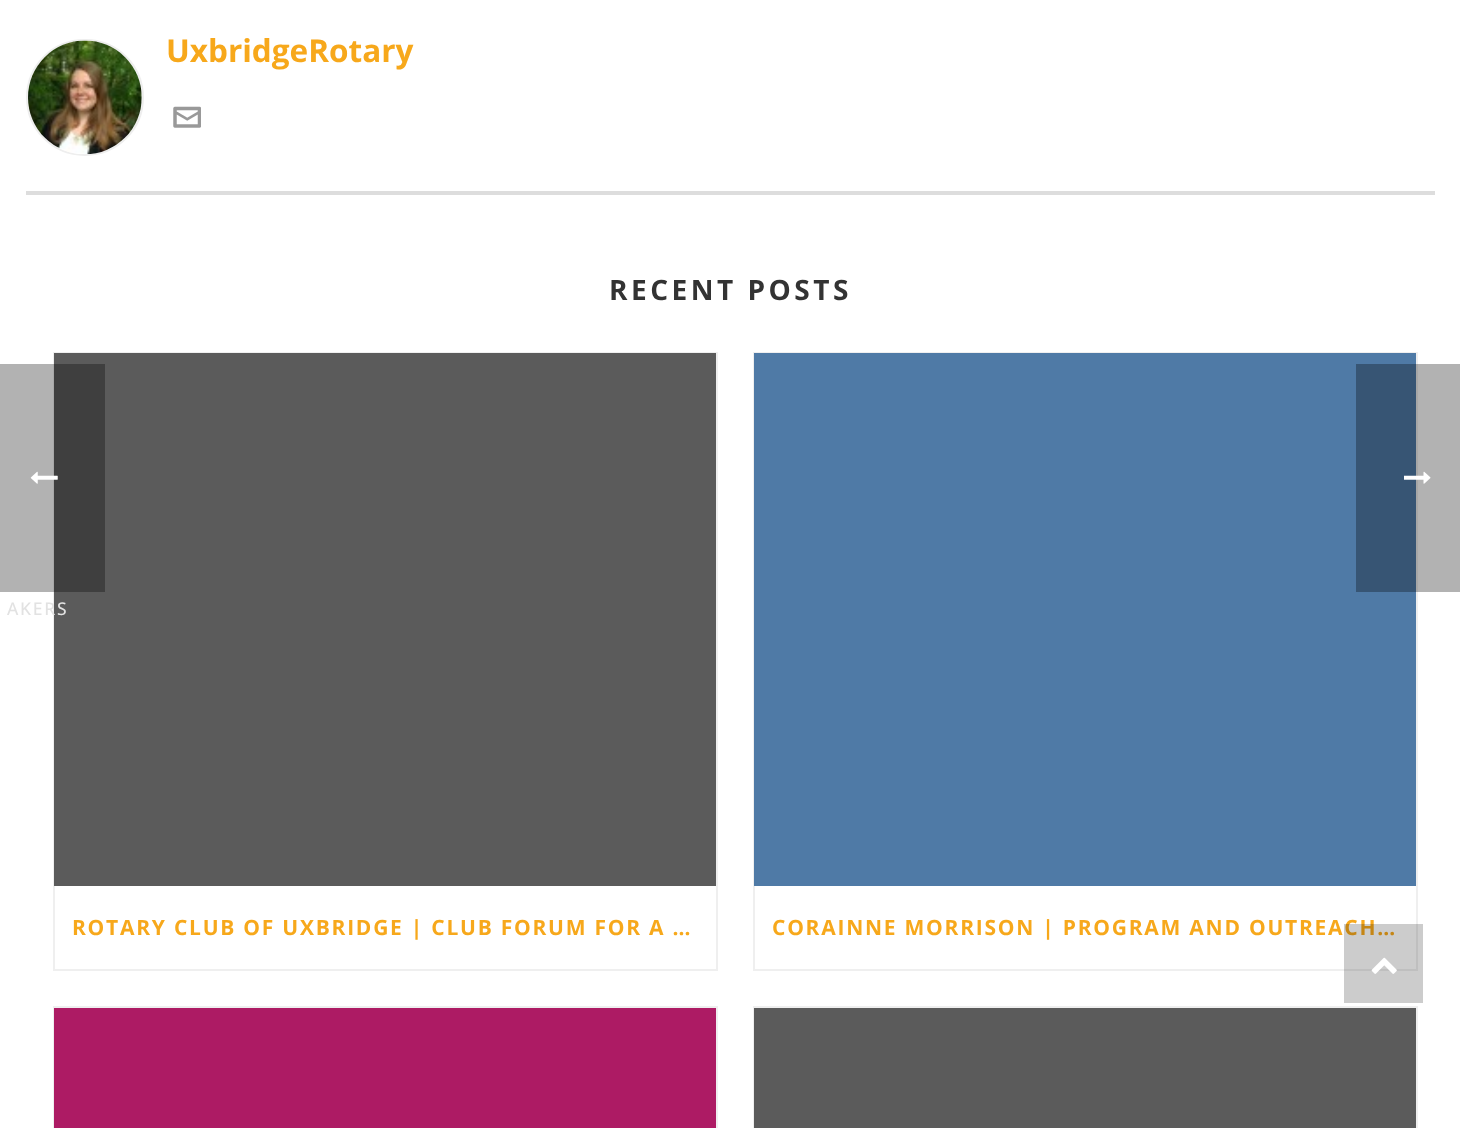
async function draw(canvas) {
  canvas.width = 1460;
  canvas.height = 1128;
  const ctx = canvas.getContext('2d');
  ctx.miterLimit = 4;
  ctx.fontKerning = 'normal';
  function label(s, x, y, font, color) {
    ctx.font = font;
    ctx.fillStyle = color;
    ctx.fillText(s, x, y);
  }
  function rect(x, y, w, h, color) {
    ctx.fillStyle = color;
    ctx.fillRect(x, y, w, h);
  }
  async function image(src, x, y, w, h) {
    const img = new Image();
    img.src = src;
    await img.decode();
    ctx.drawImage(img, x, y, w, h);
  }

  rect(0, 0, 1460, 1128, '#fff');
  rect(26, 191, 1409, 4, '#ddd');
  ctx.beginPath();
  ctx.roundRect(27, 40, 116, 115, 57.5);
  ctx.strokeStyle = '#eee';
  ctx.lineWidth = 2;
  ctx.stroke();
  await image('assets/img1.png', 28, 40, 114, 115);
  label('UxbridgeRotary', 166, 62, 'bold 31.5px Open Sans', '#f7a81b');
  await image('assets/img2.png', 173, 106, 28, 22);
  ctx.letterSpacing = '3.5px';
  label('RECENT POSTS', 609, 300, 'bold 28px Open Sans', '#333');
  ctx.strokeStyle = '#efefef';
  ctx.strokeRect(54, 353, 663, 617);
  rect(54, 353, 662, 533, '#5b5b5b');
  ctx.letterSpacing = '1.75px';
  label('ROTARY CLUB OF UXBRIDGE | CLUB FORUM FOR A …', 72, 935, 'bold 21px Open Sans', '#f7a81b');
  ctx.strokeRect(754, 353, 663, 617);
  rect(754, 353, 662, 533, '#4f7aa6');
  label('CORAINNE MORRISON | PROGRAM AND OUTREACH…', 772, 935, 'bold 21px Open Sans', '#f7a81b');
  ctx.strokeRect(54, 1007, 663, 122);
  rect(54, 1008, 662, 120, '#ad1b64');
  ctx.strokeRect(754, 1007, 663, 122);
  rect(754, 1008, 662, 120, '#5b5b5b');
  rect(1356, 364, 104, 228, '#0000004d');
  await image('assets/img3.png', 1404, 471, 27, 13);
  rect(0, 364, 105, 228, '#0000004d');
  await image('assets/img4.png', 30, 471, 28, 13);
  label('AKERS', 7, 615, '500 17.5px Open Sans', '#e2e2e2');
  rect(1344, 924, 79, 79, '#00000033');
  await image('assets/img5.png', 1371, 957, 26, 17);
}

draw(document.querySelector('canvas'));
